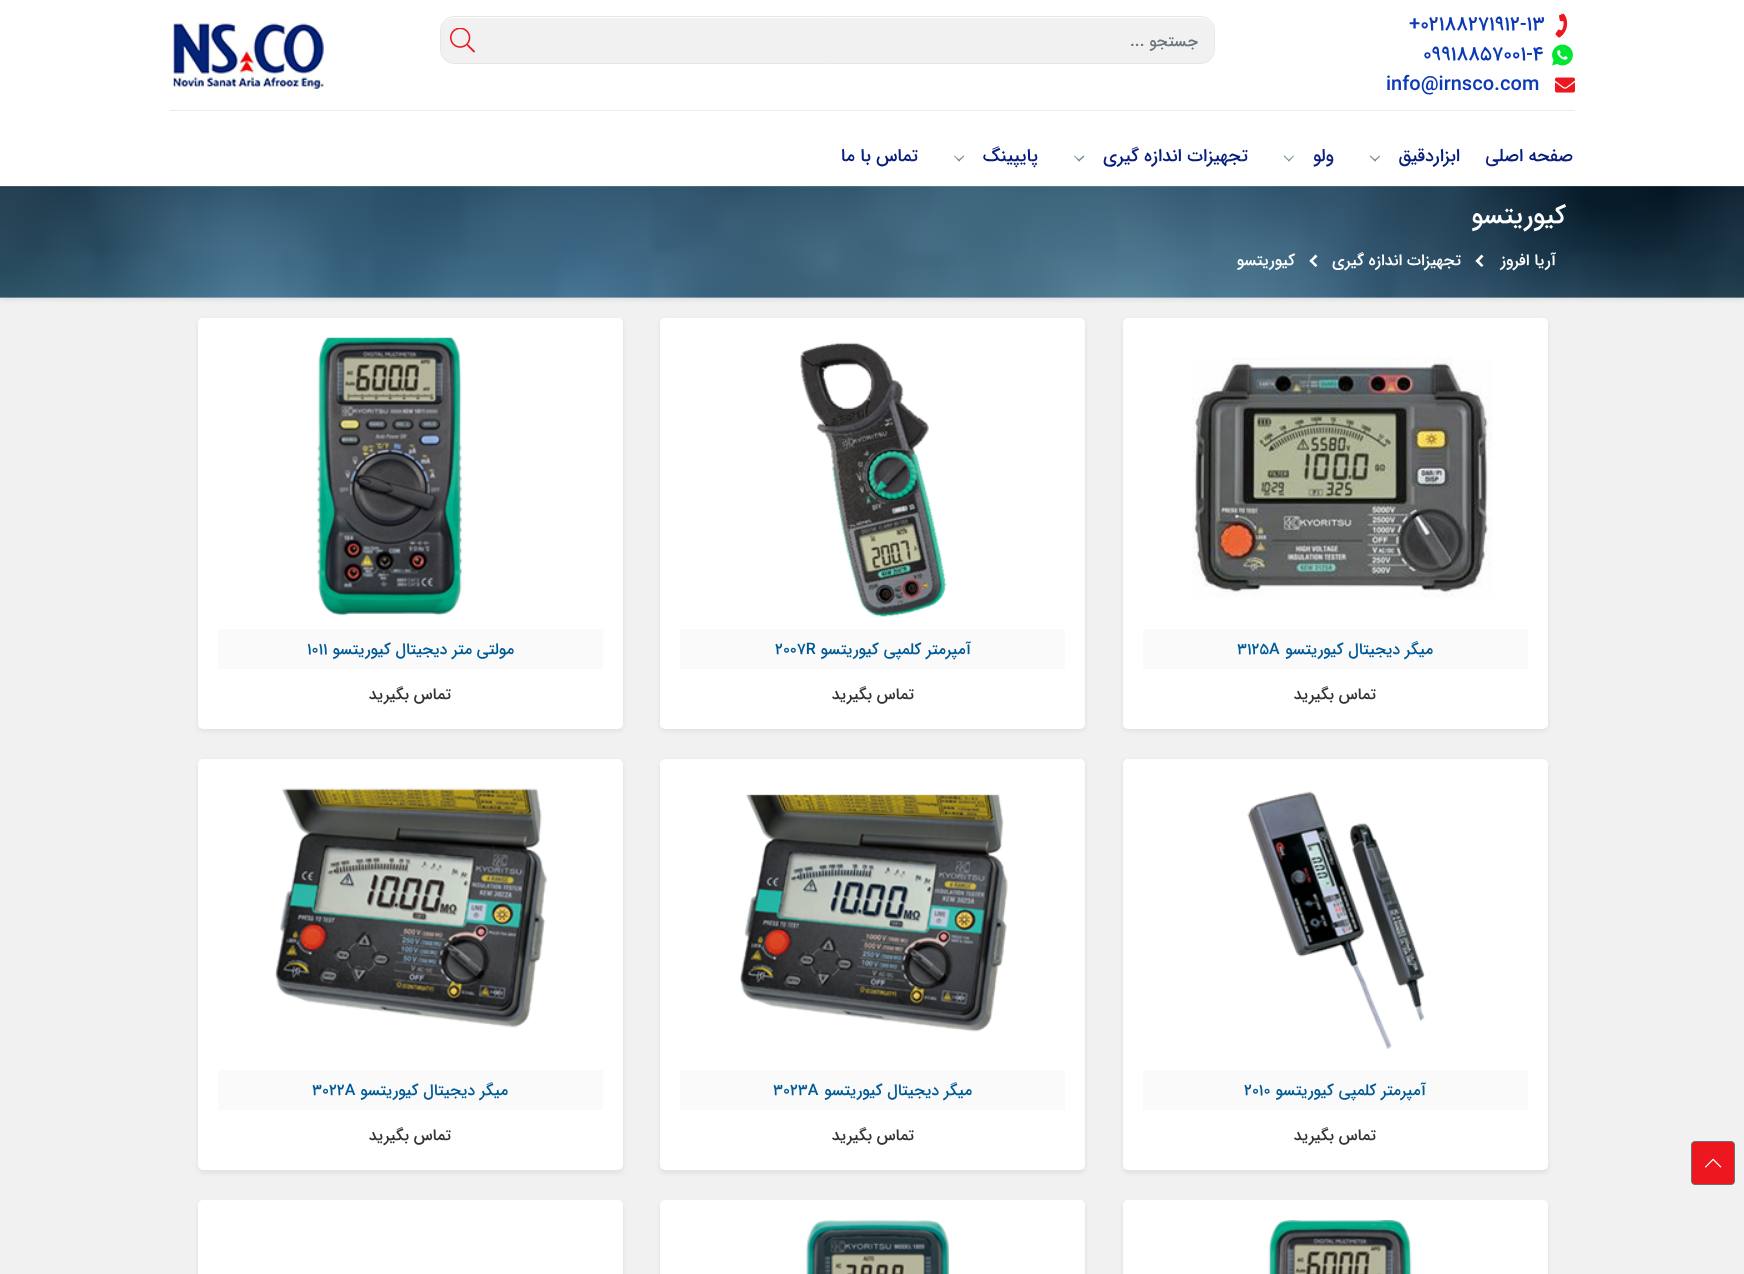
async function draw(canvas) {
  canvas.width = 1744;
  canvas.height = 1274;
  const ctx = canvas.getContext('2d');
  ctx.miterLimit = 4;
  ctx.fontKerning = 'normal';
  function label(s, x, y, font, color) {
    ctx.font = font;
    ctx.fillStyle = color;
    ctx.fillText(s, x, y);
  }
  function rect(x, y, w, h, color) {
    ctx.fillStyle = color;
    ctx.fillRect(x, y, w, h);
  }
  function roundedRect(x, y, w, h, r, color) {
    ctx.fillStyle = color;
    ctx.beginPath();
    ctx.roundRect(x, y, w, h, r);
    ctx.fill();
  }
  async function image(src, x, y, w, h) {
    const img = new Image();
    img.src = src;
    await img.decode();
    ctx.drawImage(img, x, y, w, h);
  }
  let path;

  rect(0, 0, 1744, 1274, '#f1f1f1');
  rect(0, 0, 1744, 186, '#fff');
  await image('assets/img1.png', 1555, 13, 13, 25);
  label('+02188271912-13', 1409, 30, '500 20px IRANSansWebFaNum', '#0c39b5');
  await image('assets/img2.png', 1552, 44, 21, 22);
  label('09918857001-4', 1423, 60, '500 20px IRANSansWebFaNum', '#0c39b5');
  await image('assets/img3.png', 1555, 77, 20, 16);
  label('info@irnsco.com', 1386, 90, '500 20px IRANSansWebFaNum', '#0c39b5');
  roundedRect(441, 18, 773, 45, 13, '#f1f1f1');
  ctx.beginPath();
  ctx.roundRect(440.5, 16.5, 774, 47, 13.5);
  ctx.strokeStyle = '#e6e6e6';
  ctx.stroke();
  ctx.direction = 'rtl';
  label('جستجو ...', 1198, 46, '500 16px IRANSansWebFaNum', '#6c757d');
  await image('assets/img4.png', 450, 28, 25, 25);
  await image('assets/img5.png', 173, 21, 153, 72);
  rect(170, 110, 1405, 1, '#ebebeb');
  label('صفحه اصلی', 1573, 161, '500 18px IRANSansWebFaNum', '#081e7c');
  label('ابزاردقیق', 1460, 161, '500 18px IRANSansWebFaNum', '#081e7c');
  ctx.fillStyle = '#708b96';
  path = new Path2D('M1379.5 155.5L1380 156.5L1375 161.5L1374 160.5Z');
  ctx.fill(path);
  path = new Path2D('M1370.5 155.5L1376 160.5L1375 161.5L1369.5 156Z');
  ctx.fill(path);
  label('ولو', 1334, 161, '500 18px IRANSansWebFaNum', '#081e7c');
  ctx.fillStyle = '#708b96';
  path = new Path2D('M1293.5 155.5L1294 156L1289 161.5L1288 160.5Z');
  ctx.fill(path);
  path = new Path2D('M1284.5 155.5L1289.5 160.5L1289 161.5L1283.5 156Z');
  ctx.fill(path);
  label('تجهیزات اندازه گیری', 1248, 161, '500 18px IRANSansWebFaNum', '#081e7c');
  ctx.fillStyle = '#708b96';
  path = new Path2D('M1083.5 155.5L1084.5 156.5L1079 161.5L1078 160.5Z');
  ctx.fill(path);
  path = new Path2D('M1074.5 155.5L1080 160.5L1079 161.5L1074 156Z');
  ctx.fill(path);
  label('پایپینگ', 1038, 161, '500 18px IRANSansWebFaNum', '#081e7c');
  ctx.fillStyle = '#708b96';
  path = new Path2D('M963.5 155.5L964.5 156L959 161.5L958 160.5Z');
  ctx.fill(path);
  path = new Path2D('M954.5 155.5L960 160.5L959 161.5L954 156Z');
  ctx.fill(path);
  label('تماس با ما', 918, 161, '500 18px IRANSansWebFaNum', '#081e7c');
  ctx.fillStyle = '#00000012';
  ctx.filter = 'blur(2.5px)';
  ctx.beginPath();
  ctx.rect(0, 189, 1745, 111);
  ctx.fill();
  ctx.filter = 'none';
  await image('assets/img6.png', 0, 186, 1744, 112);
  label('کیوریتسو', 1566, 223, '500 26px IRANSansWebFaNum', '#fff');
  label('آریا افروز', 1556, 265, '500 16px IRANSansWebFaNum', '#fff');
  path = new Path2D('M1477.5 259L1483.5 265.5L1481.5 267L1475.5 261Z');
  ctx.fill(path);
  path = new Path2D('M1481.5 254.5L1483.5 256.5L1477.5 262.5L1475.5 261Z');
  ctx.fill(path);
  label('تجهیزات اندازه گیری', 1461, 265, '500 16px IRANSansWebFaNum', '#fff');
  path = new Path2D('M1311 259L1317.5 265.5L1315.5 267L1309.5 261Z');
  ctx.fill(path);
  path = new Path2D('M1315.5 254.5L1317.5 256.5L1311 262.5L1309.5 261Z');
  ctx.fill(path);
  label('کیوریتسو', 1295, 265, '500 16px IRANSansWebFaNum', '#fff');
  ctx.fillStyle = '#00000012';
  ctx.filter = 'blur(2.5px)';
  ctx.beginPath();
  ctx.roundRect(1123, 320, 425, 411, 5);
  ctx.fill();
  ctx.filter = 'none';
  roundedRect(1123, 318, 425, 411, 5, '#fff');
  await image('assets/img7.png', 1192, 357, 301, 241);
  rect(1143, 629, 385, 40, '#fafafa');
  label('میگر دیجیتال کیوریتسو', 1433, 654, '500 16px IRANSansWebFaNum', '#005a96');
  ctx.direction = 'ltr';
  label('3125A', 1237, 654, '500 16px IRANSansWebFaNum', '#005a96');
  ctx.direction = 'rtl';
  label('تماس بگیرید', 1376, 699, '500 16px IRANSansWebFaNum', '#333');
  ctx.fillStyle = '#00000012';
  ctx.filter = 'blur(2.5px)';
  ctx.beginPath();
  ctx.roundRect(660, 320, 425, 411, 5);
  ctx.fill();
  ctx.filter = 'none';
  roundedRect(660, 318, 425, 411, 5, '#fff');
  await image('assets/img8.png', 800, 342, 147, 275);
  rect(680, 629, 385, 40, '#fafafa');
  label('آمپرمتر کلمپی کیوریتسو', 971, 654, '500 16px IRANSansWebFaNum', '#005a96');
  ctx.direction = 'ltr';
  label('2007R', 775, 654, '500 16px IRANSansWebFaNum', '#005a96');
  ctx.direction = 'rtl';
  label('تماس بگیرید', 914, 699, '500 16px IRANSansWebFaNum', '#333');
  ctx.fillStyle = '#00000012';
  ctx.filter = 'blur(2.5px)';
  ctx.beginPath();
  ctx.roundRect(198, 320, 425, 411, 5);
  ctx.fill();
  ctx.filter = 'none';
  roundedRect(198, 318, 425, 411, 5, '#fff');
  await image('assets/img9.png', 317, 337, 146, 279);
  rect(218, 629, 385, 40, '#fafafa');
  label('مولتی متر دیجیتال کیوریتسو', 514, 654, '500 16px IRANSansWebFaNum', '#005a96');
  ctx.direction = 'ltr';
  label('1011', 307, 654, '500 16px IRANSansWebFaNum', '#005a96');
  ctx.direction = 'rtl';
  label('تماس بگیرید', 451, 699, '500 16px IRANSansWebFaNum', '#333');
  ctx.fillStyle = '#00000012';
  ctx.filter = 'blur(2.5px)';
  ctx.beginPath();
  ctx.roundRect(1123, 761, 425, 412, 5);
  ctx.fill();
  ctx.filter = 'none';
  roundedRect(1123, 759, 425, 411, 5, '#fff');
  await image('assets/img10.png', 1247, 791, 178, 258);
  rect(1143, 1070, 385, 40, '#fafafa');
  label('آمپرمتر کلمپی کیوریتسو', 1426, 1095, '500 16px IRANSansWebFaNum', '#005a96');
  ctx.direction = 'ltr';
  label('2010', 1244, 1095, '500 16px IRANSansWebFaNum', '#005a96');
  ctx.direction = 'rtl';
  label('تماس بگیرید', 1376, 1140, '500 16px IRANSansWebFaNum', '#333');
  ctx.fillStyle = '#00000012';
  ctx.filter = 'blur(2.5px)';
  ctx.beginPath();
  ctx.roundRect(660, 761, 425, 412, 5);
  ctx.fill();
  ctx.filter = 'none';
  roundedRect(660, 759, 425, 411, 5, '#fff');
  await image('assets/img11.png', 740, 794, 268, 238);
  rect(680, 1070, 385, 40, '#fafafa');
  label('میگر دیجیتال کیوریتسو', 972, 1095, '500 16px IRANSansWebFaNum', '#005a96');
  ctx.direction = 'ltr';
  label('3023A', 773, 1095, '500 16px IRANSansWebFaNum', '#005a96');
  ctx.direction = 'rtl';
  label('تماس بگیرید', 914, 1140, '500 16px IRANSansWebFaNum', '#333');
  ctx.fillStyle = '#00000012';
  ctx.filter = 'blur(2.5px)';
  ctx.beginPath();
  ctx.roundRect(198, 761, 425, 412, 5);
  ctx.fill();
  ctx.filter = 'none';
  roundedRect(198, 759, 425, 411, 5, '#fff');
  await image('assets/img12.png', 275, 788, 273, 240);
  rect(218, 1070, 385, 40, '#fafafa');
  label('میگر دیجیتال کیوریتسو', 508, 1095, '500 16px IRANSansWebFaNum', '#005a96');
  ctx.direction = 'ltr';
  label('3022A', 312, 1095, '500 16px IRANSansWebFaNum', '#005a96');
  ctx.direction = 'rtl';
  label('تماس بگیرید', 451, 1140, '500 16px IRANSansWebFaNum', '#333');
  ctx.fillStyle = '#00000012';
  ctx.filter = 'blur(2.5px)';
  ctx.beginPath();
  ctx.roundRect(1123, 1203, 425, 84, 5);
  ctx.fill();
  ctx.filter = 'none';
  roundedRect(1123, 1200, 425, 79, 5, '#fff');
  await image('assets/img13.png', 1268, 1220, 144, 54);
  ctx.fillStyle = '#00000012';
  ctx.filter = 'blur(2.5px)';
  ctx.beginPath();
  ctx.roundRect(660, 1203, 425, 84, 5);
  ctx.fill();
  ctx.filter = 'none';
  roundedRect(660, 1200, 425, 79, 5, '#fff');
  await image('assets/img14.png', 806, 1220, 144, 54);
  ctx.fillStyle = '#00000012';
  ctx.filter = 'blur(2.5px)';
  ctx.beginPath();
  ctx.roundRect(198, 1203, 425, 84, 5);
  ctx.fill();
  ctx.filter = 'none';
  roundedRect(198, 1200, 425, 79, 5, '#fff');
  ctx.fillStyle = '#ed171f';
  ctx.beginPath();
  ctx.roundRect(1691.5, 1141.5, 43, 43, 3.5);
  ctx.fill();
  ctx.strokeStyle = '#707070';
  ctx.stroke();
  await image('assets/img15.png', 1705, 1158, 17, 10);
}

draw(document.querySelector('canvas'));
